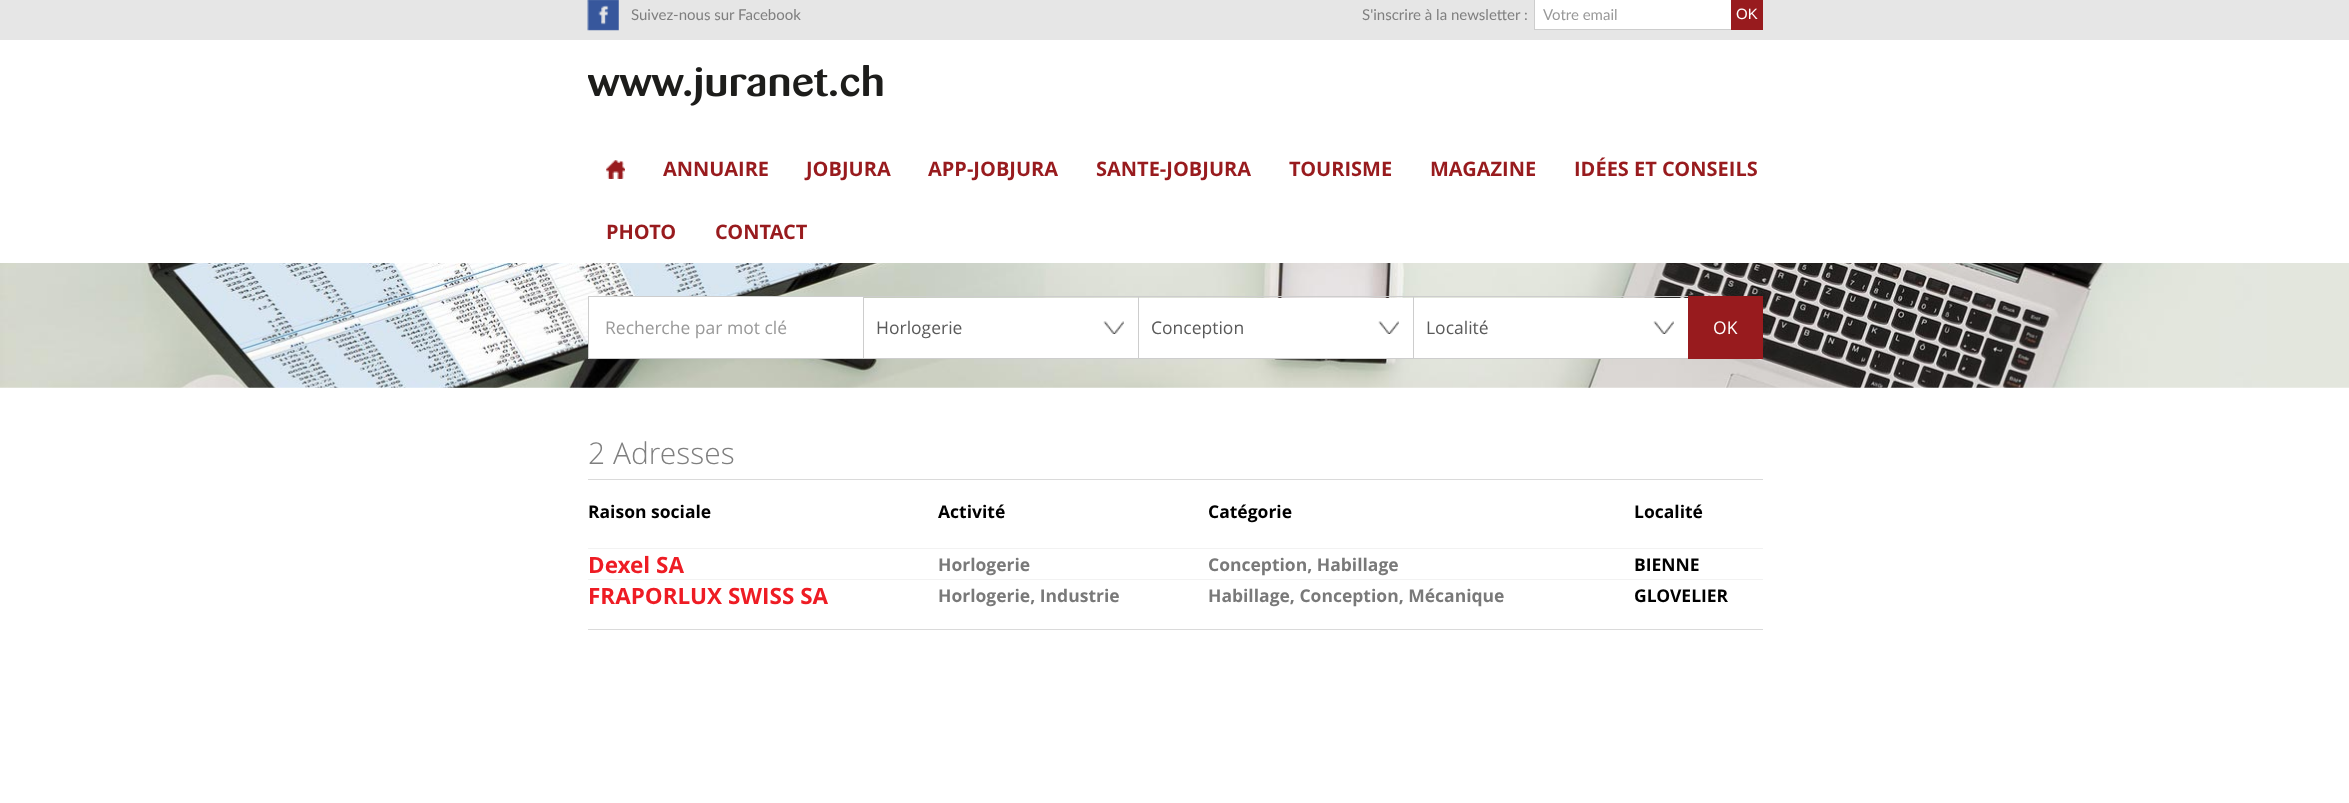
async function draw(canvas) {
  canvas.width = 2349;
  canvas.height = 803;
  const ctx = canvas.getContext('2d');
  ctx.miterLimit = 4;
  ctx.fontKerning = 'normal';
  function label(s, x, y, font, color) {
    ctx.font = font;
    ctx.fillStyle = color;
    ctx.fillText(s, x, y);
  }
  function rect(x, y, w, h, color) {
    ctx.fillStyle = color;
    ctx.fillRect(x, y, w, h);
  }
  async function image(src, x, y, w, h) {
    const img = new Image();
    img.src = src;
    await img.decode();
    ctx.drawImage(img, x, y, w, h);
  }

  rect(0, 0, 2349, 803, '#fff');
  rect(0, 0, 2349, 40, '#e6e6e6');
  await image('assets/img1.png', 587, 0, 32, 31);
  label('Suivez-nous sur Facebook', 631, 20, '15px Lato', '#7f7f7f');
  label('S\'inscrire à la newsletter :', 1362, 20, '15px Lato', '#7f7f7f');
  rect(1535, 0, 196, 29, '#fff');
  rect(1534, 29, 197, 1, '#cdcdcd');
  rect(1534, 0, 1, 30, '#cdcdcd');
  label('Votre email', 1543, 20, '15px Lato', '#999');
  rect(1731, 0, 32, 30, '#981b1e');
  label('OK', 1736, 19, '15px Liberation Sans', '#fff');
  await image('assets/img2.png', 588, 65, 295, 41);
  await image('assets/img3.png', 606, 160, 19, 19);
  label('ANNUAIRE', 663, 176, 'bold 20px Open Sans', '#981b1e');
  label('JOBJURA', 806, 176, 'bold 20px Open Sans', '#981b1e');
  label('APP-JOBJURA', 928, 176, 'bold 20px Open Sans', '#981b1e');
  label('SANTE-JOBJURA', 1096, 176, 'bold 20px Open Sans', '#981b1e');
  label('TOURISME', 1289, 176, 'bold 20px Open Sans', '#981b1e');
  label('MAGAZINE', 1430, 176, 'bold 20px Open Sans', '#981b1e');
  label('IDÉES ET CONSEILS', 1574, 176, 'bold 20px Open Sans', '#981b1e');
  label('PHOTO', 606, 239, 'bold 20px Open Sans', '#981b1e');
  label('CONTACT', 715, 239, 'bold 20px Open Sans', '#981b1e');
  await image('assets/img4.png', 0, 263, 2349, 125);
  rect(589, 297, 274, 61, '#fff');
  rect(588, 296, 1100, 1, '#cdcdcd');
  rect(588, 358, 1100, 1, '#cdcdcd');
  rect(588, 296, 1, 63, '#cdcdcd');
  label('Recherche par mot clé', 605, 334, '17.5px Open Sans', '#999');
  rect(863, 296, 1, 63, '#cdcdcd');
  rect(864, 298, 274, 60, '#fff');
  await image('assets/img5.png', 1103, 321, 21, 13);
  label('Horlogerie', 876, 334, '17.5px Open Sans', '#5a5a5a');
  rect(1138, 296, 1, 63, '#cdcdcd');
  rect(1139, 298, 274, 60, '#fff');
  await image('assets/img5.png', 1378, 321, 21, 13);
  label('Conception', 1151, 334, '17.5px Open Sans', '#5a5a5a');
  rect(1413, 296, 1, 63, '#cdcdcd');
  rect(1414, 298, 274, 60, '#fff');
  await image('assets/img5.png', 1653, 321, 21, 13);
  label('Localité', 1426, 334, '17.5px Open Sans', '#5a5a5a');
  rect(1688, 296, 75, 63, '#981b1e');
  label('OK', 1713, 334, '17.5px Open Sans', '#fff');
  label('2 Adresses', 588, 464, '300 30px Open Sans', '#7f7f7f');
  rect(588, 479, 1175, 1, '#dadada');
  rect(588, 629, 1175, 1, '#dadada');
  label('Raison sociale', 588, 518, 'bold 17.5px Open Sans', '#000');
  label('Activité', 938, 518, 'bold 17.5px Open Sans', '#000');
  label('Catégorie', 1208, 518, 'bold 17.5px Open Sans', '#000');
  label('Localité', 1634, 518, 'bold 17.5px Open Sans', '#000');
  rect(588, 548, 1175, 1, '#f2f2f2');
  label('Dexel SA', 588, 573, 'bold 22.5px Open Sans', '#ee1c24');
  label('Horlogerie', 938, 571, 'bold 17.5px Open Sans', '#797979');
  label('Conception, Habillage', 1208, 571, 'bold 17.5px Open Sans', '#797979');
  label('BIENNE', 1634, 571, 'bold 17.5px Open Sans', '#000');
  rect(588, 579, 1175, 1, '#f2f2f2');
  label('FRAPORLUX SWISS SA', 588, 604, 'bold 22.5px Open Sans', '#ee1c24');
  label('Horlogerie, Industrie', 938, 602, 'bold 17.5px Open Sans', '#797979');
  label('Habillage, Conception, Mécanique', 1208, 602, 'bold 17.5px Open Sans', '#797979');
  label('GLOVELIER', 1634, 602, 'bold 17.5px Open Sans', '#000');
}

draw(document.querySelector('canvas'));
